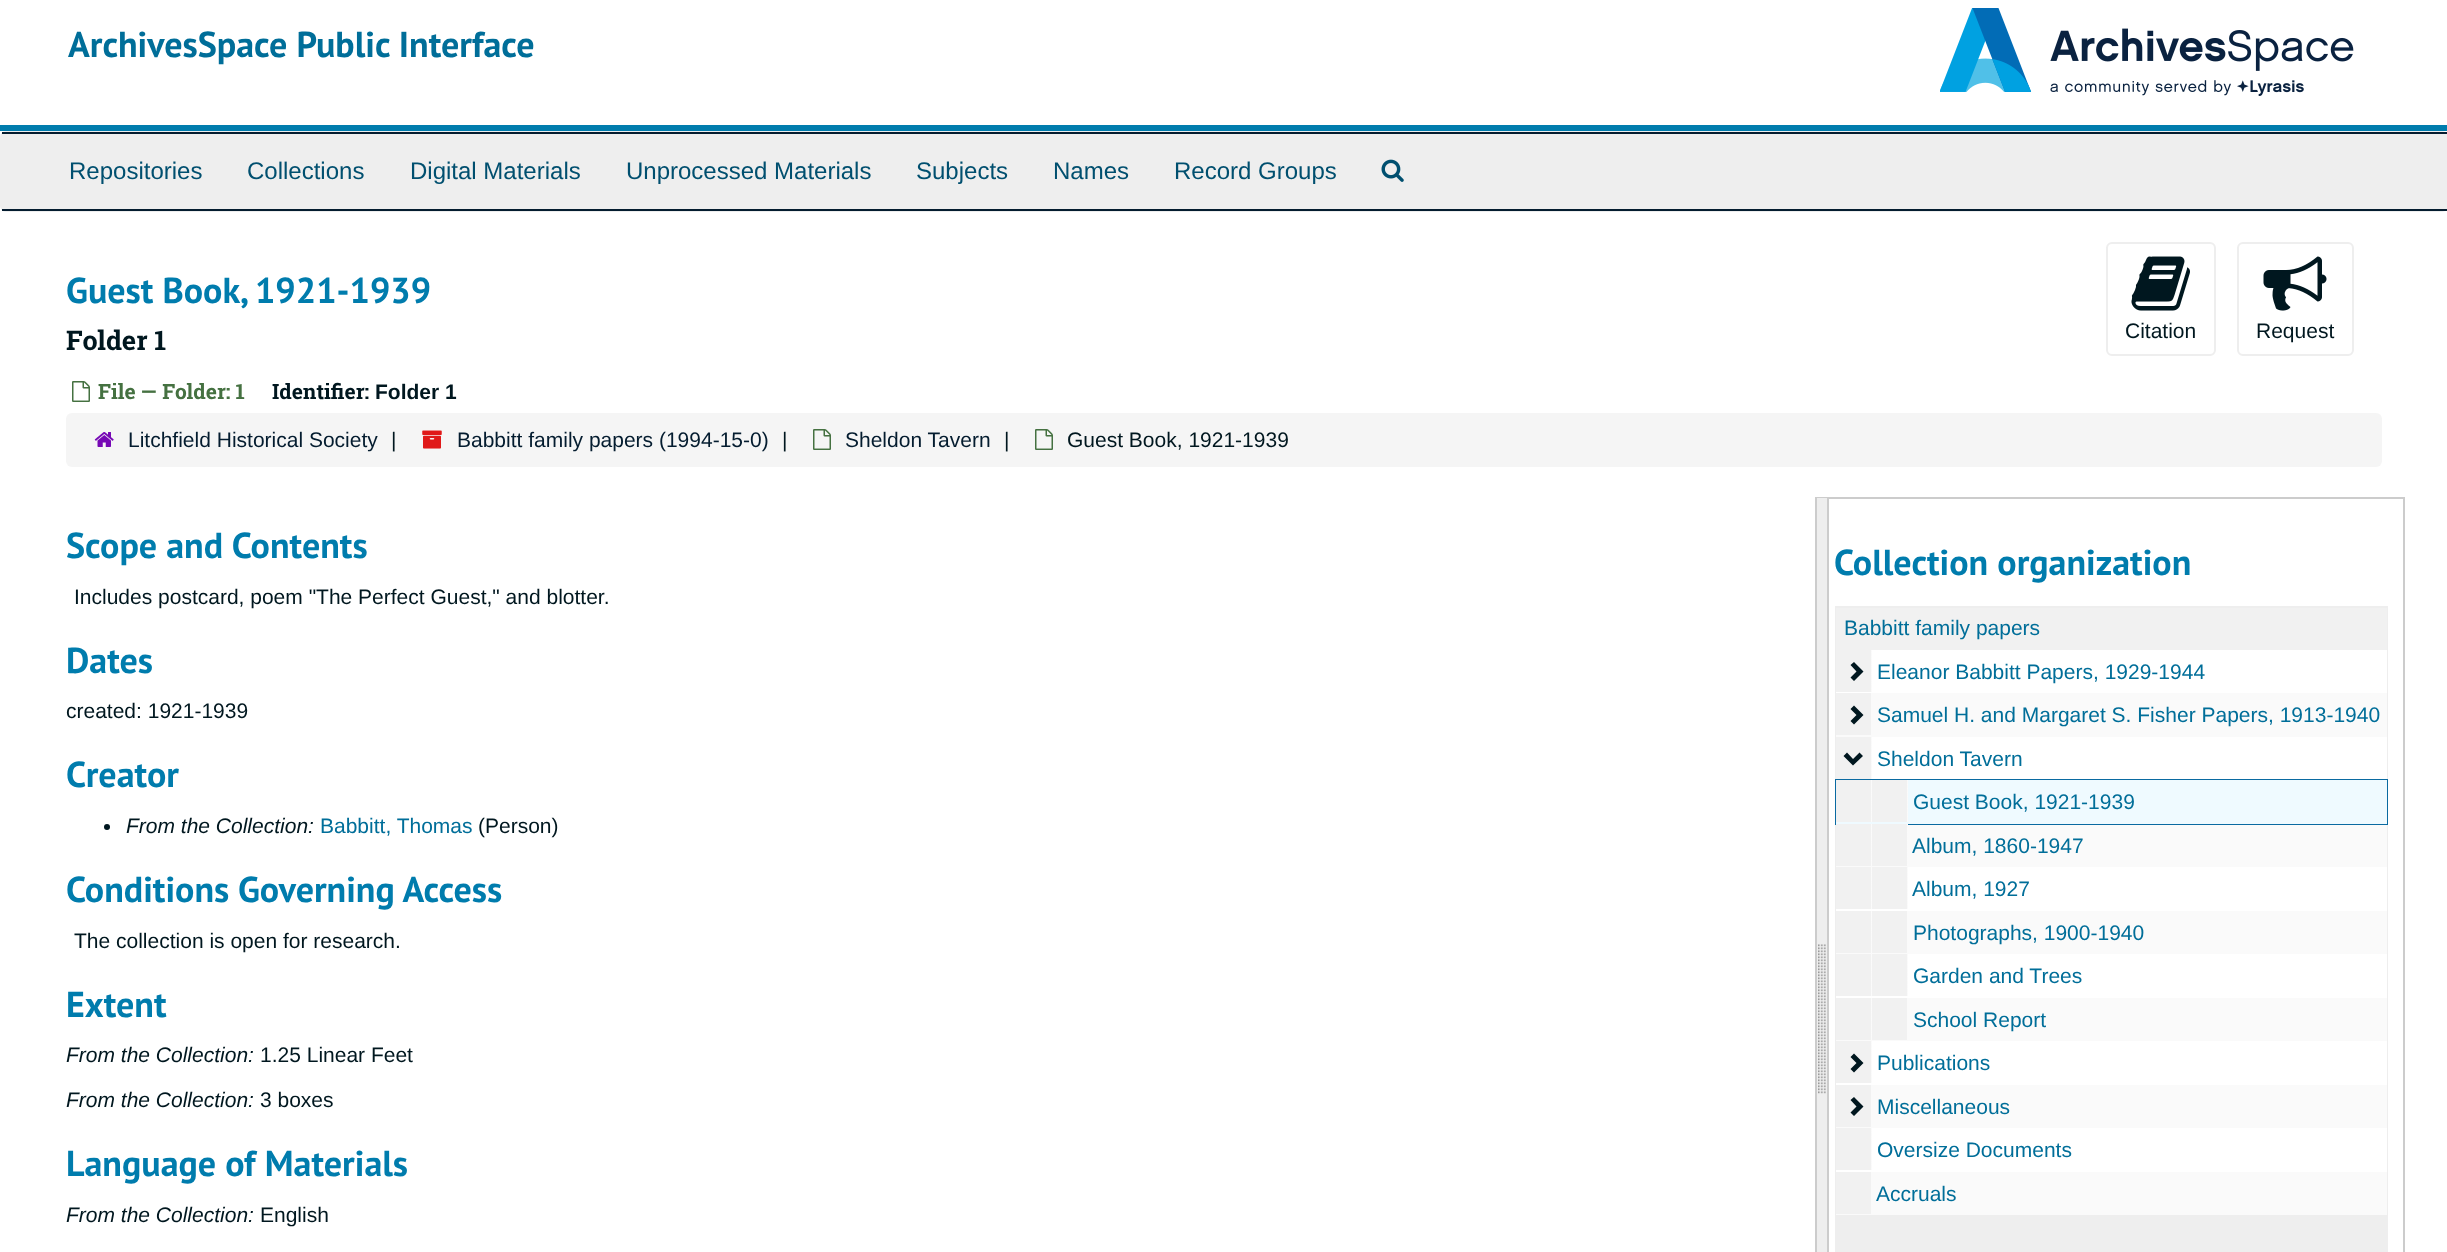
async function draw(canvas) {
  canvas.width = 2447;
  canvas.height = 1252;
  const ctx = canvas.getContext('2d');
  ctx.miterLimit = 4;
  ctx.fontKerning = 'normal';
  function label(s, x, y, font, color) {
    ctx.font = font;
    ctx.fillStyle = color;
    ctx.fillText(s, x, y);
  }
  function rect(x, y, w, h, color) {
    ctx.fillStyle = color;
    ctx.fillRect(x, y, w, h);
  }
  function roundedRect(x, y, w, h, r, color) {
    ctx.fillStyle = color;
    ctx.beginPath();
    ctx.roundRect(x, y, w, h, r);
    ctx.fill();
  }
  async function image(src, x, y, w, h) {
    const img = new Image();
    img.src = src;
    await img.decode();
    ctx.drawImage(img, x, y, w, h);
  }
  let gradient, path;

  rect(0, 0, 2447, 1252, '#fff');
  rect(0, 125, 2447, 6, '#007cad');
  label('ArchivesSpace Public Interface', 68, 57, 'bold 36px PT Sans', '#006e99');
  await image('assets/img1.png', 1940, 8, 414, 88);
  ctx.beginPath();
  ctx.roundRect(1, 132, 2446, 79, 5);
  ctx.strokeStyle = '#eee';
  ctx.lineWidth = 2;
  ctx.stroke();
  rect(2, 134, 2444, 75, '#eee');
  rect(2, 132, 2445, 2, '#041c2f');
  rect(2, 209, 2445, 2, '#041c2f');
  label('Repositories', 69, 179, '24px Liberation Sans', '#004f6f');
  label('Collections', 247, 179, '24px Liberation Sans', '#004f6f');
  label('Digital Materials', 410, 179, '24px Liberation Sans', '#004f6f');
  label('Unprocessed Materials', 626, 179, '24px Liberation Sans', '#004f6f');
  label('Subjects', 916, 179, '24px Liberation Sans', '#004f6f');
  label('Names', 1053, 179, '24px Liberation Sans', '#004f6f');
  label('Record Groups', 1174, 179, '24px Liberation Sans', '#004f6f');
  await image('assets/img2.png', 1381, 159, 23, 23);
  label('Guest Book, 1921-1939', 66, 303, 'bold 36px PT Sans', '#007cad');
  label('Folder 1', 66, 350, 'bold 27px Roboto Slab', '#00171f');
  await image('assets/img3.png', 72, 381, 18, 21);
  label('File — Folder: 1', 98, 399, 'bold 21px Roboto Slab', '#457141');
  label('Identifier:', 272, 399, 'bold 21px Roboto Slab', '#00171f');
  label('Folder 1', 375, 399, 'bold 21px Liberation Sans', '#00171f');
  ctx.beginPath();
  ctx.roundRect(2107, 243, 108, 112, 5);
  ctx.stroke();
  await image('assets/img4.png', 2131, 256, 59, 55);
  label('Citation', 2125, 338, '21px Liberation Sans', '#00171f');
  ctx.beginPath();
  ctx.roundRect(2238, 243, 115, 112, 5);
  ctx.stroke();
  await image('assets/img5.png', 2263, 256, 64, 55);
  label('Request', 2256, 338, '21px Liberation Sans', '#00171f');
  roundedRect(66, 413, 2316, 54, 6, '#f5f5f5');
  await image('assets/img6.png', 94, 432, 20, 15);
  label('Litchfield Historical Society', 128, 447, '21px Liberation Sans', '#041c2f');
  label('|', 391, 447, '21px Liberation Sans', '#00171f');
  await image('assets/img7.png', 422, 430, 20, 19);
  label('Babbitt family papers (1994-15-0)', 457, 447, '21px Liberation Sans', '#041c2f');
  label('|', 782, 447, '21px Liberation Sans', '#00171f');
  await image('assets/img8.png', 813, 429, 18, 21);
  label('Sheldon Tavern', 845, 447, '21px Liberation Sans', '#041c2f');
  label('|', 1004, 447, '21px Liberation Sans', '#00171f');
  await image('assets/img8.png', 1035, 429, 18, 21);
  label('Guest Book, 1921-1939', 1067, 447, '21px Liberation Sans', '#00171f');
  label('Scope and Contents', 66, 558, 'bold 36px PT Sans', '#007cad');
  label('Includes postcard, poem "The Perfect Guest," and blotter.', 74, 604, '21px Liberation Sans', '#00171f');
  label('Dates', 66, 673, 'bold 36px PT Sans', '#007cad');
  label('created: 1921-1939', 66, 718, '21px Liberation Sans', '#00171f');
  label('Creator', 66, 787, 'bold 36px PT Sans', '#007cad');
  ctx.fillStyle = '#00171f';
  ctx.beginPath();
  ctx.arc(107, 827, 3, 0, 2 * Math.PI);
  ctx.fill();
  label('From the Collection:', 126, 833, 'italic 21px Liberation Sans', '#00171f');
  label('Babbitt, Thomas', 320, 833, '21px Liberation Sans', '#006e99');
  label('(Person)', 478, 833, '21px Liberation Sans', '#00171f');
  label('Conditions Governing Access', 66, 902, 'bold 36px PT Sans', '#007cad');
  label('The collection is open for research.', 74, 948, '21px Liberation Sans', '#00171f');
  label('Extent', 66, 1017, 'bold 36px PT Sans', '#007cad');
  label('From the Collection:', 66, 1062, 'italic 21px Liberation Sans', '#00171f');
  label('1.25 Linear Feet', 260, 1062, '21px Liberation Sans', '#00171f');
  label('From the Collection:', 66, 1107, 'italic 21px Liberation Sans', '#00171f');
  label('3 boxes', 260, 1107, '21px Liberation Sans', '#00171f');
  label('Language of Materials', 66, 1176, 'bold 36px PT Sans', '#007cad');
  label('From the Collection:', 66, 1222, 'italic 21px Liberation Sans', '#00171f');
  label('English', 260, 1222, '21px Liberation Sans', '#00171f');
  ctx.strokeStyle = '#ccc';
  ctx.strokeRect(1816, 498, 588, 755);
  rect(1817, 498, 10, 754, '#eee');
  await image('assets/img9.png', 1818, 944, 8, 150);
  rect(1827, 498, 2, 754, '#ccc');
  label('Collection organization', 1834, 575, 'bold 36px PT Sans', '#007cad');
  rect(1835, 606, 553, 646, '#eee');
  rect(1836, 608, 551, 42, '#f1f1f1');
  label('Babbitt family papers', 1844, 635, '21px Liberation Sans', '#006e99');
  rect(1836, 650, 551, 43, '#fff');
  gradient = ctx.createLinearGradient(1836, 671, 1872, 671);
  gradient.addColorStop(0, '#f1f1f1');
  gradient.addColorStop(0.96, '#f1f1f1');
  gradient.addColorStop(1, '#fff');
  ctx.fillStyle = gradient;
  ctx.fillRect(1836, 650, 36, 42);
  rect(1836, 693, 551, 44, '#fafafa');
  gradient = ctx.createLinearGradient(1836, 714, 1872, 714);
  gradient.addColorStop(0, '#f1f1f1');
  gradient.addColorStop(0.96, '#f1f1f1');
  gradient.addColorStop(1, '#fff');
  ctx.fillStyle = gradient;
  ctx.fillRect(1836, 693, 35, 42);
  ctx.fillStyle = '#00171f';
  path = new Path2D('M1863.5 671.5L1854 681L1850.5 677.5L1856.5 671.5L1850.5 665L1854 662ZM1863.5 715L1854 724.5L1850.5 721L1856.5 715L1850.5 709L1854 705.5Z');
  ctx.fill(path);
  label('Eleanor Babbitt Papers, 1929-1944', 1877, 679, '21px Liberation Sans', '#006e99');
  label('Samuel H. and Margaret S. Fisher Papers, 1913-1940', 1877, 722, '21px Liberation Sans', '#006e99');
  rect(1872, 737, 515, 42, '#fff');
  gradient = ctx.createLinearGradient(1836, 758, 1872, 758);
  gradient.addColorStop(0, '#f1f1f1');
  gradient.addColorStop(0.96, '#f1f1f1');
  gradient.addColorStop(1, '#fff');
  ctx.fillStyle = gradient;
  ctx.fillRect(1836, 737, 36, 42);
  ctx.fillStyle = '#00171f';
  path = new Path2D('M1853 765.5L1843.5 756L1847 752.5L1853 759L1859.5 752.5L1863 756Z');
  ctx.fill(path);
  label('Sheldon Tavern', 1877, 766, '21px Liberation Sans', '#006e99');
  ctx.strokeStyle = '#0a6aa1';
  ctx.strokeRect(1836, 780, 551, 44);
  rect(1836, 780, 551, 44, '#effaff');
  gradient = ctx.createLinearGradient(1836, 801, 1908, 801);
  gradient.addColorStop(0, '#f1f1f1');
  gradient.addColorStop(0.48, '#f1f1f1');
  gradient.addColorStop(0.5, '#fff');
  gradient.addColorStop(0.5, '#f1f1f1');
  gradient.addColorStop(0.98, '#f1f1f1');
  gradient.addColorStop(1, '#fff');
  ctx.fillStyle = gradient;
  ctx.fillRect(1836, 780, 72, 42);
  label('Guest Book, 1921-1939', 1913, 809, '21px Liberation Sans', '#006e99');
  rect(1836, 825, 551, 42, '#fafafa');
  gradient = ctx.createLinearGradient(1836, 845, 1908, 845);
  gradient.addColorStop(0, '#f1f1f1');
  gradient.addColorStop(0.48, '#f1f1f1');
  gradient.addColorStop(0.5, '#fff');
  gradient.addColorStop(0.5, '#f1f1f1');
  gradient.addColorStop(0.98, '#f1f1f1');
  gradient.addColorStop(1, '#fff');
  ctx.fillStyle = gradient;
  ctx.fillRect(1836, 824, 72, 42);
  label('Album, 1860-1947', 1912, 853, '21px Liberation Sans', '#006e99');
  rect(1836, 867, 551, 44, '#fff');
  gradient = ctx.createLinearGradient(1836, 888, 1908, 888);
  gradient.addColorStop(0, '#f1f1f1');
  gradient.addColorStop(0.48, '#f1f1f1');
  gradient.addColorStop(0.5, '#fff');
  gradient.addColorStop(0.5, '#f1f1f1');
  gradient.addColorStop(0.98, '#f1f1f1');
  gradient.addColorStop(1, '#fff');
  ctx.fillStyle = gradient;
  ctx.fillRect(1836, 867, 72, 42);
  label('Album, 1927', 1912, 896, '21px Liberation Sans', '#006e99');
  rect(1836, 911, 551, 43, '#fafafa');
  gradient = ctx.createLinearGradient(1836, 932, 1908, 932);
  gradient.addColorStop(0, '#f1f1f1');
  gradient.addColorStop(0.48, '#f1f1f1');
  gradient.addColorStop(0.5, '#fff');
  gradient.addColorStop(0.5, '#f1f1f1');
  gradient.addColorStop(0.98, '#f1f1f1');
  gradient.addColorStop(1, '#fff');
  ctx.fillStyle = gradient;
  ctx.fillRect(1836, 911, 71, 42);
  label('Photographs, 1900-1940', 1913, 940, '21px Liberation Sans', '#006e99');
  rect(1836, 954, 551, 44, '#fff');
  gradient = ctx.createLinearGradient(1836, 975, 1908, 975);
  gradient.addColorStop(0, '#f1f1f1');
  gradient.addColorStop(0.48, '#f1f1f1');
  gradient.addColorStop(0.5, '#fff');
  gradient.addColorStop(0.5, '#f1f1f1');
  gradient.addColorStop(0.98, '#f1f1f1');
  gradient.addColorStop(1, '#fff');
  ctx.fillStyle = gradient;
  ctx.fillRect(1836, 954, 72, 42);
  label('Garden and Trees', 1913, 983, '21px Liberation Sans', '#006e99');
  rect(1836, 998, 551, 43, '#fafafa');
  gradient = ctx.createLinearGradient(1836, 1019, 1908, 1019);
  gradient.addColorStop(0, '#f1f1f1');
  gradient.addColorStop(0.48, '#f1f1f1');
  gradient.addColorStop(0.5, '#fff');
  gradient.addColorStop(0.5, '#f1f1f1');
  gradient.addColorStop(0.98, '#f1f1f1');
  gradient.addColorStop(1, '#fff');
  ctx.fillStyle = gradient;
  ctx.fillRect(1836, 998, 71, 42);
  label('School Report', 1913, 1027, '21px Liberation Sans', '#006e99');
  rect(1836, 1041, 551, 44, '#fff');
  gradient = ctx.createLinearGradient(1836, 1062, 1872, 1062);
  gradient.addColorStop(0, '#f1f1f1');
  gradient.addColorStop(0.96, '#f1f1f1');
  gradient.addColorStop(1, '#fff');
  ctx.fillStyle = gradient;
  ctx.fillRect(1836, 1041, 36, 42);
  rect(1836, 1085, 551, 43, '#fafafa');
  gradient = ctx.createLinearGradient(1836, 1106, 1872, 1106);
  gradient.addColorStop(0, '#f1f1f1');
  gradient.addColorStop(0.96, '#f1f1f1');
  gradient.addColorStop(1, '#fff');
  ctx.fillStyle = gradient;
  ctx.fillRect(1836, 1085, 35, 42);
  ctx.fillStyle = '#00171f';
  path = new Path2D('M1863.5 1063L1854 1072.5L1850.5 1069L1856.5 1063L1850.5 1057L1854 1053.5ZM1863.5 1106.5L1854 1116L1850.5 1112.5L1856.5 1106.5L1850.5 1100L1854 1097Z');
  ctx.fill(path);
  label('Publications', 1877, 1070, '21px Liberation Sans', '#006e99');
  label('Miscellaneous', 1877, 1114, '21px Liberation Sans', '#006e99');
  rect(1836, 1128, 551, 44, '#fff');
  gradient = ctx.createLinearGradient(1836, 1149, 1872, 1149);
  gradient.addColorStop(0, '#f1f1f1');
  gradient.addColorStop(0.96, '#f1f1f1');
  gradient.addColorStop(1, '#fff');
  ctx.fillStyle = gradient;
  ctx.fillRect(1836, 1128, 36, 42);
  label('Oversize Documents', 1877, 1157, '21px Liberation Sans', '#006e99');
  rect(1836, 1172, 551, 43, '#fafafa');
  gradient = ctx.createLinearGradient(1836, 1193, 1872, 1193);
  gradient.addColorStop(0, '#f1f1f1');
  gradient.addColorStop(0.96, '#f1f1f1');
  gradient.addColorStop(1, '#fff');
  ctx.fillStyle = gradient;
  ctx.fillRect(1836, 1172, 35, 42);
  label('Accruals', 1876, 1201, '21px Liberation Sans', '#006e99');
}

draw(document.querySelector('canvas'));
